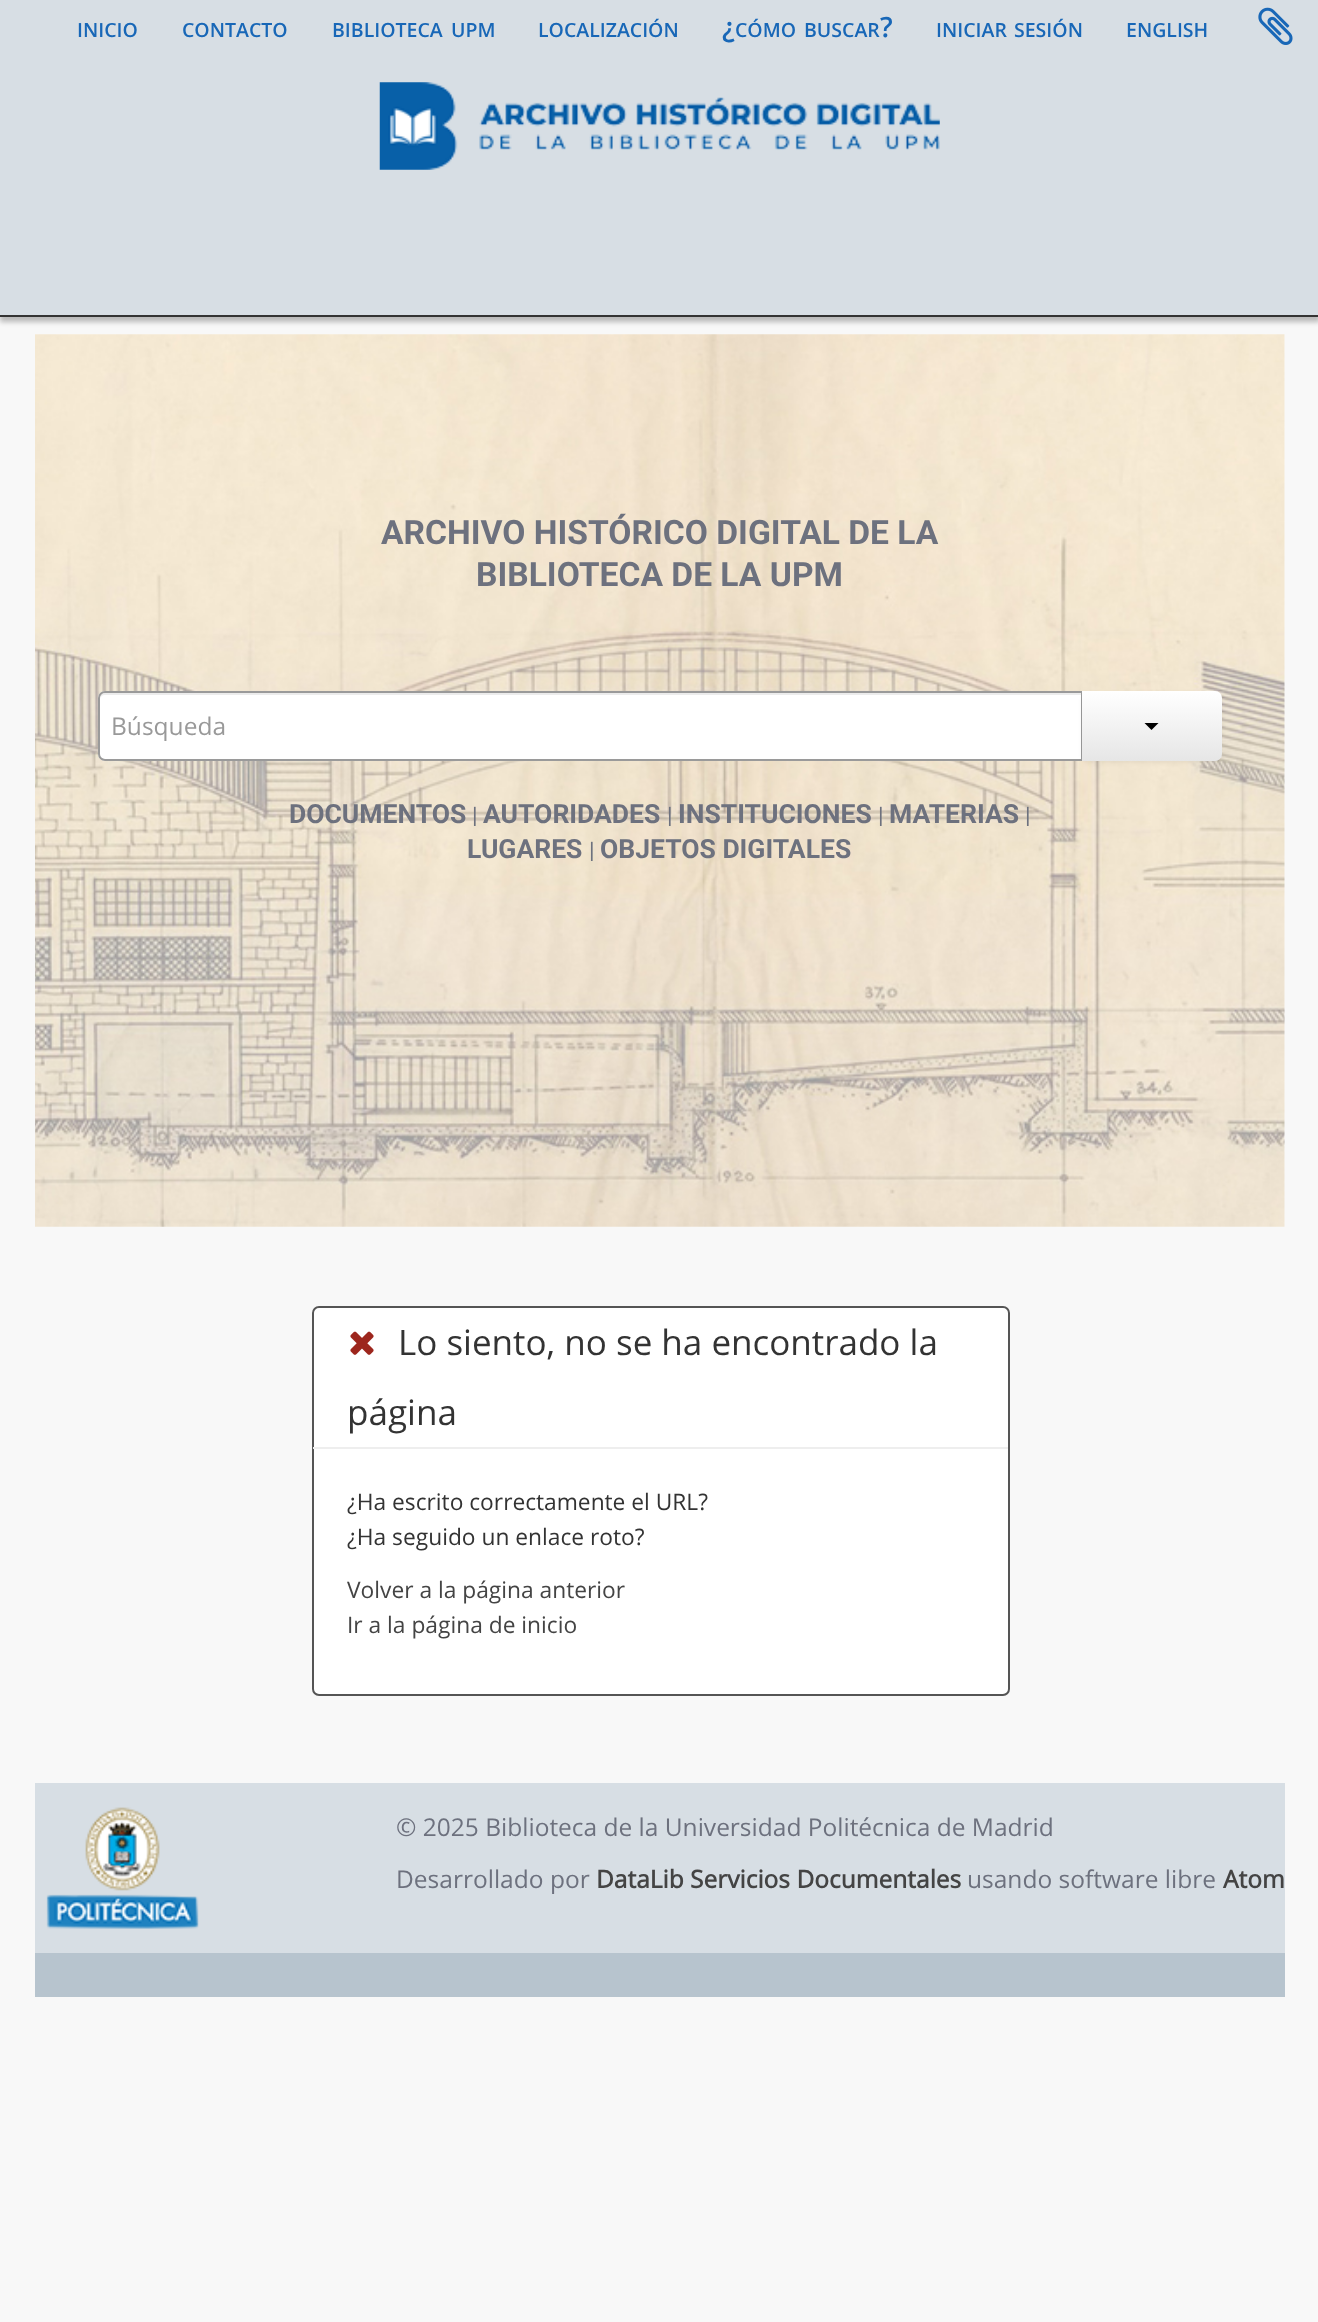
async function draw(canvas) {
  canvas.width = 1318;
  canvas.height = 2322;
  const ctx = canvas.getContext('2d');
  ctx.miterLimit = 4;
  ctx.fontKerning = 'normal';
  function label(s, x, y, font, color) {
    ctx.font = font;
    ctx.fillStyle = color;
    ctx.fillText(s, x, y);
  }
  function rect(x, y, w, h, color) {
    ctx.fillStyle = color;
    ctx.fillRect(x, y, w, h);
  }
  async function image(src, x, y, w, h) {
    const img = new Image();
    img.src = src;
    await img.decode();
    ctx.drawImage(img, x, y, w, h);
  }
  let gradient, path;

  rect(0, 0, 1318, 2322, '#f8f8f8');
  ctx.fillStyle = '#00000040';
  ctx.filter = 'blur(2.5px)';
  ctx.beginPath();
  ctx.rect(0, 5, 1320, 317);
  ctx.fill();
  ctx.filter = 'none';
  rect(0, 0, 1318, 315, '#d7dee4');
  rect(0, 315, 1318, 2, '#333');
  label('INICIO', 77, 37, '600 19.5px Open Sans', '#1867b7');
  label('CONTACTO', 182, 37, '600 19.5px Open Sans', '#1867b7');
  label('BIBLIOTECA', 332, 37, '600 19.5px Open Sans', '#1867b7');
  label('UPM', 451, 37, '600 19.5px Open Sans', '#1867b7');
  label('LOCALIZACIÓN', 538, 37, '600 19.5px Open Sans', '#1867b7');
  label('¿', 722, 37, '600 28px Open Sans', '#1867b7');
  label('CÓMO', 735, 37, '600 19.5px Open Sans', '#1867b7');
  label('BUSCAR', 804, 37, '600 19.5px Open Sans', '#1867b7');
  label('?', 880, 37, '600 28px Open Sans', '#1867b7');
  label('INICIAR', 936, 37, '600 19.5px Open Sans', '#1867b7');
  label('SESIÓN', 1014, 37, '600 19.5px Open Sans', '#1867b7');
  label('ENGLISH', 1126, 37, '600 19.5px Open Sans', '#1867b7');
  await image('assets/img1.png', 1258, 7, 35, 38);
  await image('assets/img2.png', 379, 82, 561, 88);
  await image('assets/img3.png', 35, 334, 1250, 893);
  label('ARCHIVO HISTÓRICO DIGITAL DE LA', 381, 544, 'bold 33.6px Roboto', '#6d717e');
  label('BIBLIOTECA DE LA UPM', 476, 586, 'bold 33.6px Roboto', '#6d717e');
  ctx.fillStyle = '#fff';
  ctx.beginPath();
  ctx.roundRect(98, 691, 985, 70, [7, 0, 0, 7]);
  ctx.fill();
  ctx.fillStyle = '#ececec';
  path = new Path2D('M105 695H1082V693H105C101 693 100 697 100 700C100 697 102 695 105 695Z');
  ctx.fill(path);
  ctx.beginPath();
  ctx.roundRect(99, 692, 983, 68, [6, 0, 0, 6]);
  ctx.strokeStyle = '#9a9a9a';
  ctx.lineWidth = 2;
  ctx.stroke();
  label('Búsqueda', 111, 735, '24.5px Open Sans', '#999');
  ctx.fillStyle = '#0000000d';
  ctx.filter = 'blur(2px)';
  ctx.beginPath();
  ctx.roundRect(1082, 693, 140, 70, 7);
  ctx.fill();
  ctx.filter = 'none';
  gradient = ctx.createLinearGradient(1152, 691, 1152, 761);
  gradient.addColorStop(0, '#fff');
  gradient.addColorStop(1, '#e6e6e6');
  ctx.fillStyle = gradient;
  ctx.beginPath();
  ctx.roundRect(1082, 691, 140, 70, [0, 7, 7, 0]);
  ctx.fill();
  ctx.fillStyle = '#ffffff33';
  path = new Path2D('M1082 693H1214C1218 693 1222 696 1222 700V698C1222 694 1219 691 1215 691H1082Z');
  ctx.fill(path);
  ctx.fillStyle = '#000';
  path = new Path2D('M1144.5 723H1158.5L1151.5 730Z');
  ctx.fill(path);
  label('DOCUMENTOS', 289, 823, 'bold 26.5px Roboto', '#6d717e');
  label('|', 472, 823, '22.75px Roboto', '#6d717e');
  label('AUTORIDADES', 483, 823, 'bold 26.5px Roboto', '#6d717e');
  label('|', 667, 823, '22.75px Roboto', '#6d717e');
  label('INSTITUCIONES', 678, 823, 'bold 26.5px Roboto', '#6d717e');
  label('|', 878, 823, '22.75px Roboto', '#6d717e');
  label('MATERIAS', 889, 823, 'bold 26.5px Roboto', '#6d717e');
  label('|', 1025, 823, '22.75px Roboto', '#6d717e');
  label('LUGARES', 467, 858, 'bold 26.5px Roboto', '#6d717e');
  label('|', 589, 858, '22.75px Roboto', '#6d717e');
  label('OBJETOS DIGITALES', 600, 858, 'bold 26.5px Roboto', '#6d717e');
  ctx.fillStyle = '#fff';
  ctx.beginPath();
  ctx.roundRect(313, 1307, 696, 388, 6);
  ctx.fill();
  ctx.strokeStyle = '#555';
  ctx.stroke();
  rect(313, 1447, 695, 2, '#eee');
  await image('assets/img4.png', 350, 1331, 24, 24);
  label('Lo siento, no se ha encontrado la', 398, 1355, '35px Open Sans', '#333');
  label('página', 347, 1425, '35px Open Sans', '#333');
  label('¿Ha escrito correctamente el URL?', 347, 1510, '22.75px Open Sans', '#333');
  label('¿Ha seguido un enlace roto?', 347, 1545, '22.75px Open Sans', '#333');
  label('Volver a la página anterior', 347, 1598, '22.75px Open Sans', '#444');
  label('Ir a la página de inicio', 347, 1633, '22.75px Open Sans', '#444');
  rect(35, 1783, 1250, 170, '#d7dee4');
  rect(35, 1953, 1250, 44, '#b7c4ce');
  await image('assets/img5.png', 46, 1807, 153, 122);
  label('© 2025 Biblioteca de la Universidad Politécnica de Madrid', 396, 1836, '24.5px Open Sans', '#6d717e');
  label('Desarrollado por', 396, 1888, '24.5px Open Sans', '#6d717e');
  label('DataLib Servicios Documentales', 596, 1888, 'bold 24.5px Open Sans', '#444');
  label('usando software libre', 967, 1888, '24.5px Open Sans', '#6d717e');
  label('Atom', 1223, 1888, 'bold 24.5px Open Sans', '#444');
}

draw(document.querySelector('canvas'));
